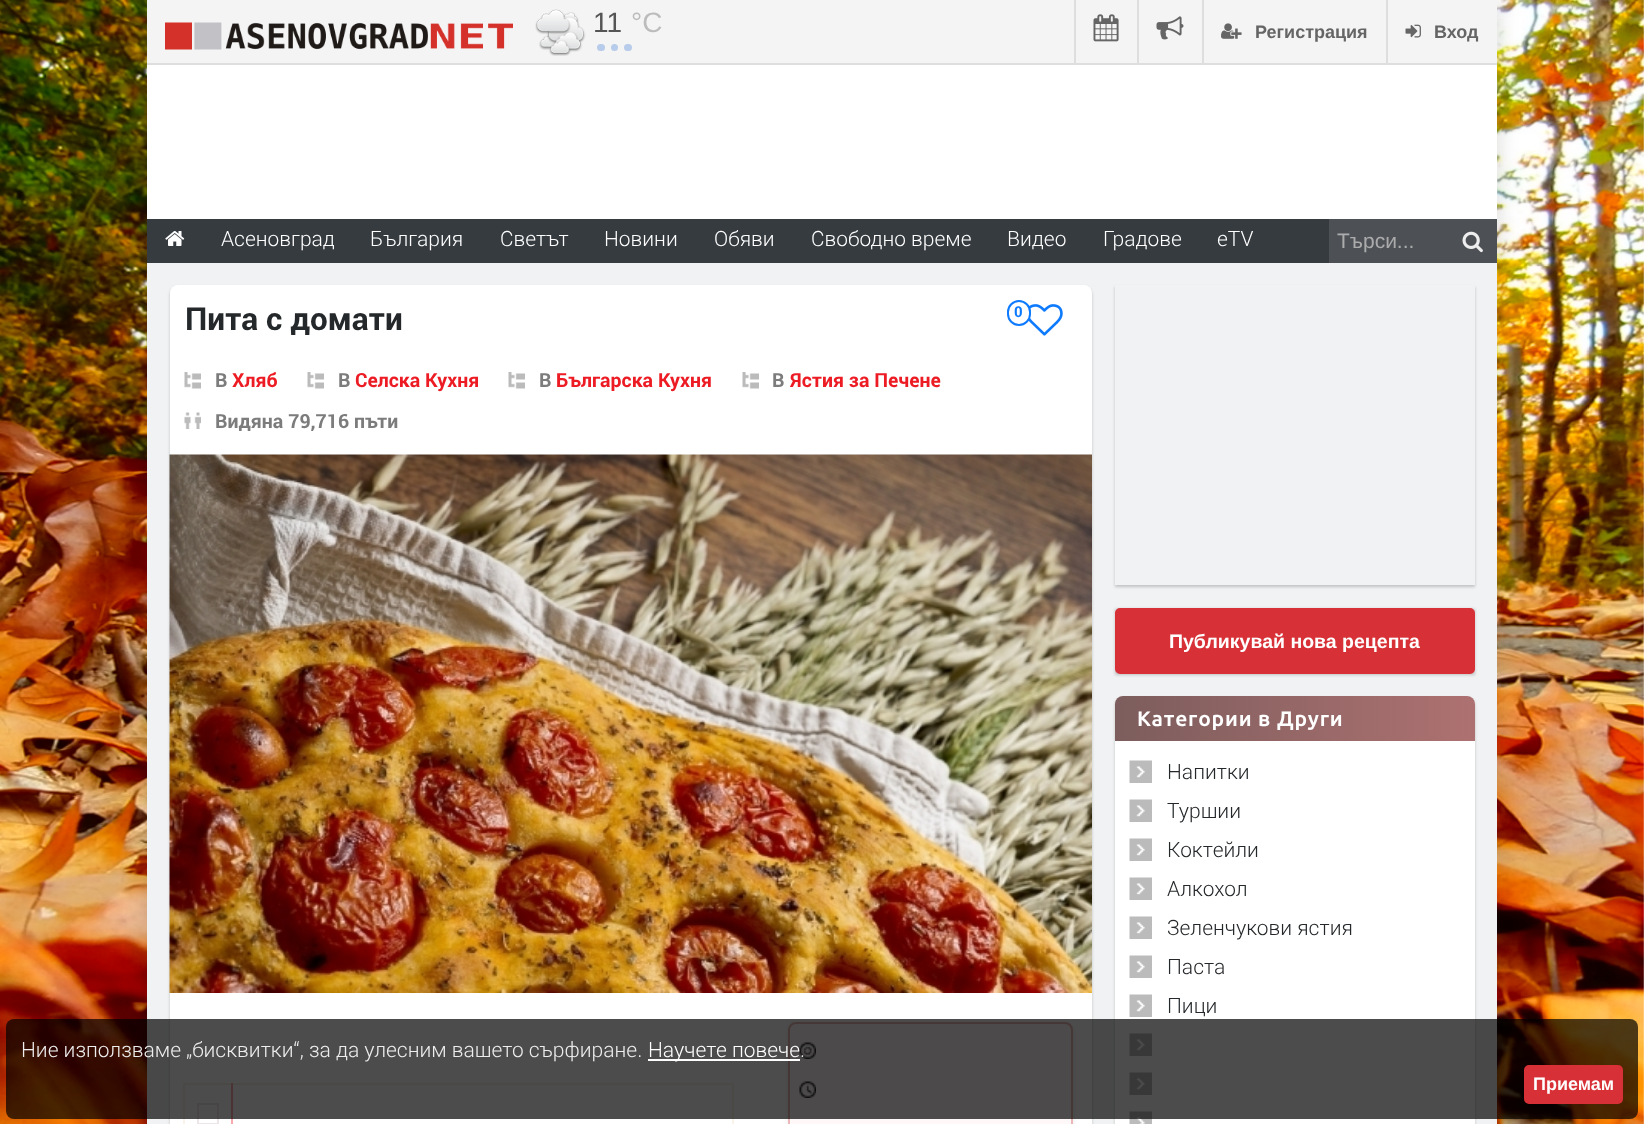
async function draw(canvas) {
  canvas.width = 1644;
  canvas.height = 1124;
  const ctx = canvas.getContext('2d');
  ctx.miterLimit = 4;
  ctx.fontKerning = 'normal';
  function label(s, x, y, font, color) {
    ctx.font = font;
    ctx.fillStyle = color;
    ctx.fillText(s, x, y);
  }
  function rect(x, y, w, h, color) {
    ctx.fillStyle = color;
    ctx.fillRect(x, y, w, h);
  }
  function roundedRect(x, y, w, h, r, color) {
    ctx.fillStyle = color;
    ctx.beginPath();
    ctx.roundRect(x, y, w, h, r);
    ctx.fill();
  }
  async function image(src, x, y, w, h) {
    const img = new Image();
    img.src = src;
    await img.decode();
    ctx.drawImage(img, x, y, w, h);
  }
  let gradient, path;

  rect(0, 0, 1644, 1124, '#fff');
  await image('assets/img1.png', 0, 0, 1644, 1124);
  ctx.fillStyle = '#00000026';
  ctx.filter = 'blur(11px)';
  ctx.beginPath();
  ctx.rect(147, 0, 1350, 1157);
  ctx.fill();
  ctx.filter = 'none';
  rect(147, 263, 1350, 861, '#f1f2f3');
  rect(147, 65, 1350, 154, '#fff');
  rect(147, 0, 1350, 63, '#f4f4f4');
  await image('assets/img2.png', 165, 22, 348, 28);
  await image('assets/img3.png', 535, 9, 51, 47);
  label('11', 593, 32, '28px Liberation Sans', '#555');
  label('°C', 631, 32, '28px Liberation Sans', '#bcbcbc');
  roundedRect(624, 44, 8, 7, 3.5, '#b7cbea');
  ctx.beginPath();
  ctx.arc(614.5, 47.5, 3.5, 0, 2 * Math.PI);
  ctx.fill();
  roundedRect(597, 44, 8, 7, 3.5, '#b7cbea');
  rect(147, 63, 1350, 2, '#dedede');
  rect(1074, 0, 2, 63, '#dedede');
  await image('assets/img4.png', 1093, 14, 26, 28);
  rect(1137, 0, 2, 63, '#dedede');
  await image('assets/img5.png', 1156, 16, 28, 24);
  rect(1202, 0, 2, 63, '#dedede');
  await image('assets/img6.png', 1221, 23, 21, 16);
  label('Регистрация', 1255, 38, 'bold 18px Liberation Sans', '#656565');
  rect(1386, 0, 2, 63, '#dedede');
  await image('assets/img7.png', 1405, 24, 16, 14);
  label('Вход', 1434, 38, 'bold 18px Liberation Sans', '#656565');
  rect(147, 219, 1182, 44, '#363b40');
  await image('assets/img8.png', 165, 231, 20, 15);
  label('Асеновград', 221, 246, '300 21px Roboto', '#fff');
  label('България', 370, 246, '300 21px Roboto', '#fff');
  label('Светът', 500, 246, '300 21px Roboto', '#fff');
  label('Новини', 604, 246, '300 21px Roboto', '#fff');
  label('Обяви', 714, 246, '300 21px Roboto', '#fff');
  label('Свободно време', 811, 246, '300 21px Roboto', '#fff');
  label('Видео', 1007, 246, '300 21px Roboto', '#fff');
  label('Градове', 1103, 246, '300 21px Roboto', '#fff');
  label('eTV', 1217, 246, '300 21px Roboto', '#fff');
  rect(1329, 219, 168, 44, '#4d5156');
  label('Търси...', 1337, 248, '21px Liberation Sans', '#ababab');
  await image('assets/img9.png', 1462, 231, 21, 22);
  ctx.fillStyle = '#00000033';
  ctx.filter = 'blur(1.5px)';
  ctx.beginPath();
  ctx.roundRect(170, 287, 922, 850, 8);
  ctx.fill();
  ctx.filter = 'none';
  roundedRect(170, 285, 922, 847, 8, '#fff');
  label('Пита с домати', 185, 330, 'bold 31.5px Roboto', '#25282a');
  await image('assets/img10.png', 1028, 304, 35, 32);
  ctx.fillStyle = '#fff';
  ctx.beginPath();
  ctx.roundRect(1008, 301, 22, 24, 11);
  ctx.fill();
  ctx.strokeStyle = '#0e7afe';
  ctx.lineWidth = 2;
  ctx.stroke();
  label('0', 1014, 317, 'bold 15px Roboto', '#0e7afe');
  await image('assets/img11.png', 184, 372, 17, 17);
  label('В', 215, 387, 'bold 19.5px Roboto', '#7c7c7c');
  label('Хляб', 232, 387, 'bold 19.5px Roboto', '#ed1c24');
  await image('assets/img11.png', 307, 372, 17, 17);
  label('В', 338, 387, 'bold 19.5px Roboto', '#7c7c7c');
  label('Селска Кухня', 355, 387, 'bold 19.5px Roboto', '#ed1c24');
  await image('assets/img11.png', 508, 372, 17, 17);
  label('В', 539, 387, 'bold 19.5px Roboto', '#7c7c7c');
  label('Българска Кухня', 556, 387, 'bold 19.5px Roboto', '#ed1c24');
  await image('assets/img12.png', 742, 372, 17, 17);
  label('В', 772, 387, 'bold 19.5px Roboto', '#7c7c7c');
  label('Ястия за Печене', 790, 387, 'bold 19.5px Roboto', '#ed1c24');
  await image('assets/img13.png', 184, 412, 17, 17);
  label('Видяна 79,716 пъти', 215, 428, 'bold 19.5px Roboto', '#7c7c7c');
  await image('assets/img14.png', 169, 454, 923, 539);
  ctx.strokeStyle = '#faf3e9';
  ctx.strokeRect(184, 1084, 549, 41);
  ctx.strokeStyle = '#eee6e6';
  ctx.strokeRect(198, 1104, 20, 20);
  rect(231, 1083, 2, 41, '#fba9ae');
  ctx.fillStyle = '#00000012';
  ctx.filter = 'blur(3px)';
  ctx.beginPath();
  ctx.roundRect(788, 1023, 285, 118, 8);
  ctx.fill();
  ctx.filter = 'none';
  ctx.fillStyle = '#fff8f8';
  ctx.beginPath();
  ctx.roundRect(789, 1023, 283, 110, 7);
  ctx.fill();
  ctx.strokeStyle = '#ecb7b9';
  ctx.stroke();
  await image('assets/img15.png', 799, 1042, 17, 17);
  await image('assets/img16.png', 799, 1081, 17, 17);
  ctx.save();
  path = new Path2D('M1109 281H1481V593H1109ZM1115 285H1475V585H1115Z');
  ctx.clip(path, 'evenodd');
  ctx.fillStyle = '#00000033';
  ctx.filter = 'blur(1.5px)';
  ctx.beginPath();
  ctx.rect(1115, 287, 360, 300);
  ctx.fill();
  ctx.filter = 'none';
  ctx.restore();
  ctx.fillStyle = '#00000033';
  ctx.filter = 'blur(1.5px)';
  ctx.beginPath();
  ctx.rect(1115, 609, 360, 66);
  ctx.fill();
  ctx.filter = 'none';
  ctx.fillStyle = '#d73036';
  ctx.beginPath();
  ctx.roundRect(1116, 609, 358, 64, 4);
  ctx.fill();
  ctx.strokeStyle = '#d73036';
  ctx.stroke();
  label('Публикувай нова рецепта', 1169, 648, 'bold 19.5px Liberation Sans', '#fff');
  ctx.fillStyle = '#00000033';
  ctx.filter = 'blur(1.5px)';
  ctx.beginPath();
  ctx.roundRect(1115, 698, 360, 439, 8);
  ctx.fill();
  ctx.filter = 'none';
  roundedRect(1115, 696, 360, 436, 8, '#fff');
  gradient = ctx.createLinearGradient(1115, 719, 1475, 719);
  gradient.addColorStop(0, '#7d5d5d');
  gradient.addColorStop(1, '#ae7171');
  ctx.fillStyle = gradient;
  ctx.beginPath();
  ctx.roundRect(1115, 696, 360, 45, [8, 8, 0, 0]);
  ctx.fill();
  ctx.letterSpacing = '0.8px';
  label('Категории в Други', 1137, 726, 'bold 21px Ubuntu', '#fff');
  await image('assets/img17.png', 1129, 760, 23, 23);
  ctx.letterSpacing = '0px';
  label('Напитки', 1167, 779, '300 21px Roboto', '#25282a');
  await image('assets/img17.png', 1129, 799, 23, 23);
  label('Туршии', 1167, 818, '300 21px Roboto', '#25282a');
  await image('assets/img17.png', 1129, 838, 23, 23);
  label('Коктейли', 1167, 857, '300 21px Roboto', '#25282a');
  await image('assets/img17.png', 1129, 877, 23, 23);
  label('Алкохол', 1167, 896, '300 21px Roboto', '#25282a');
  await image('assets/img17.png', 1129, 916, 23, 23);
  label('Зеленчукови ястия', 1167, 935, '300 21px Roboto', '#25282a');
  await image('assets/img17.png', 1129, 955, 23, 23);
  label('Паста', 1167, 974, '300 21px Roboto', '#25282a');
  await image('assets/img17.png', 1129, 994, 23, 23);
  label('Пици', 1167, 1013, '300 21px Roboto', '#25282a');
  await image('assets/img17.png', 1129, 1033, 23, 23);
  await image('assets/img17.png', 1129, 1072, 23, 23);
  await image('assets/img18.png', 1129, 1111, 23, 13);
  roundedRect(6, 1019, 1632, 100, 8, '#000000b3');
  label('Ние използваме „бисквитки“, за да улесним вашето сърфиране.', 21, 1057, '300 21px Roboto', '#eee');
  rect(648, 1059, 152, 2, '#fff');
  label('Научете повече', 648, 1057, '300 21px Roboto', '#fff');
  label('.', 800, 1057, '300 21px Roboto', '#eee');
  ctx.fillStyle = '#d73036';
  ctx.beginPath();
  ctx.roundRect(1525, 1066, 97, 37, 4);
  ctx.fill();
  ctx.stroke();
  label('Приемам', 1533, 1090, 'bold 18px Liberation Sans', '#fff');
}

draw(document.querySelector('canvas'));
